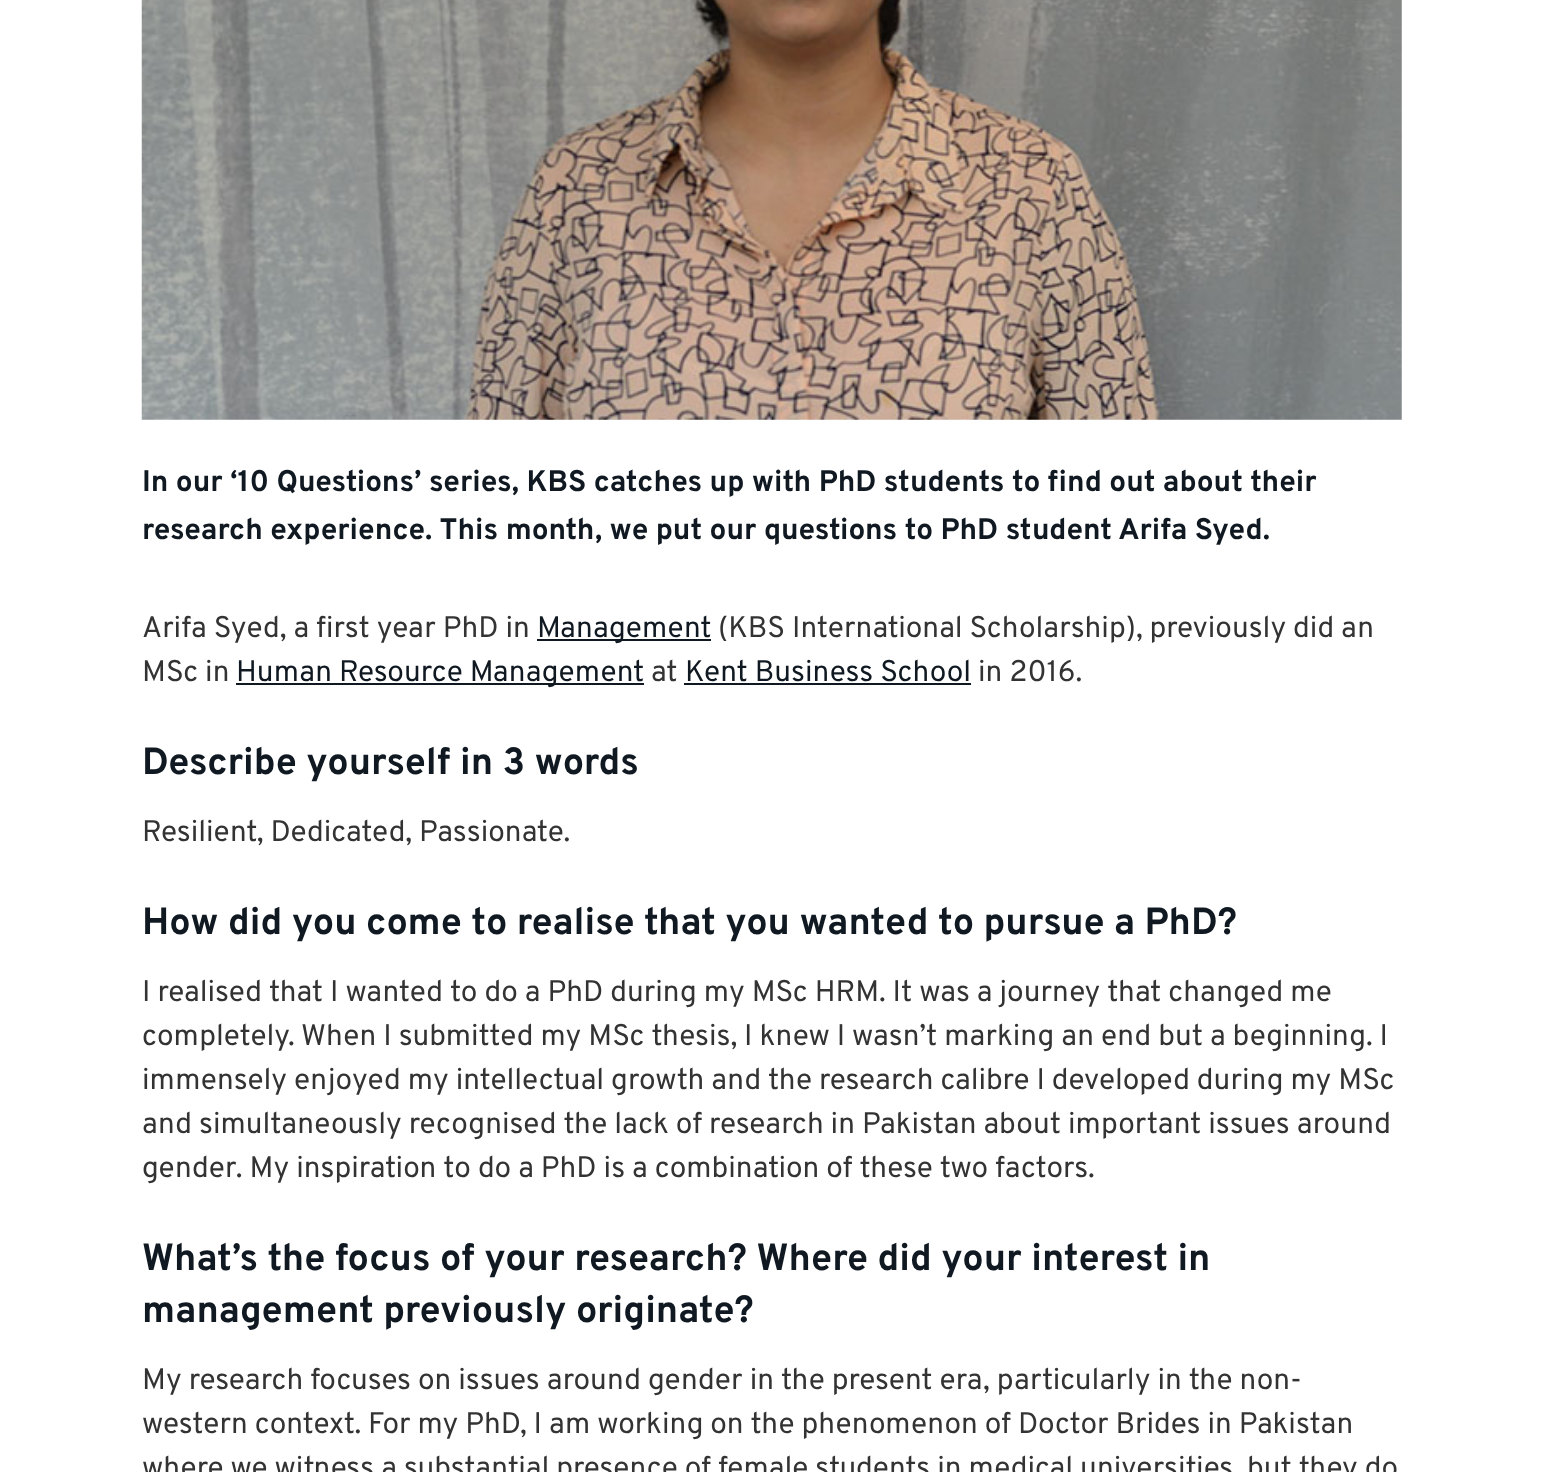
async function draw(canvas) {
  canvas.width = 1542;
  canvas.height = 1472;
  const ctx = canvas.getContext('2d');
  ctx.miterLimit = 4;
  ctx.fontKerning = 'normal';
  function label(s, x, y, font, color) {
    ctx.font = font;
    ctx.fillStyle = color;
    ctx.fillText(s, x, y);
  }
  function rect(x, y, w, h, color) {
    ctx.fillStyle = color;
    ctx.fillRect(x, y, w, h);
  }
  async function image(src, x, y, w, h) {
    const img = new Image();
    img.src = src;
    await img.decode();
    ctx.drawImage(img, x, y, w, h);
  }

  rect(0, 0, 1542, 1472, '#fff');
  await image('assets/img1.png', 141, 0, 1261, 420);
  label('In our ‘10 Questions’ series, KBS catches up with PhD students to find out about their', 142, 491, 'bold 29.75px Overpass', '#101921');
  label('research experience. This month, we put our questions to PhD student Arifa Syed.', 142, 539, 'bold 29.75px Overpass', '#101921');
  label('Arifa Syed, a first year PhD in', 142, 637, '29.75px Overpass', '#333');
  rect(537, 639, 174, 2, '#101921');
  label('Management', 537, 637, '29.75px Overpass', '#101921');
  label('(KBS International Scholarship), previously did an', 718, 637, '29.75px Overpass', '#333');
  label('MSc in', 142, 681, '29.75px Overpass', '#333');
  rect(236, 683, 408, 2, '#101921');
  label('Human Resource Management', 236, 681, '29.75px Overpass', '#101921');
  label('at', 651, 681, '29.75px Overpass', '#333');
  label('Kent Business School', 685, 681, '29.75px Overpass', '#101921');
  rect(684, 683, 287, 2, '#101921');
  label('in 2016.', 978, 681, '29.75px Overpass', '#333');
  label('Describe yourself in 3 words', 142, 774, 'bold 37.8px Overpass', '#101921');
  label('Resilient, Dedicated, Passionate.', 142, 841, '29.75px Overpass', '#333');
  label('How did you come to realise that you wanted to pursue a PhD?', 142, 934, 'bold 37.8px Overpass', '#101921');
  label('I realised that I wanted to do a PhD during my MSc HRM. It was a journey that changed me', 142, 1001, '29.75px Overpass', '#333');
  label('completely. When I submitted my MSc thesis, I knew I wasn’t marking an end but a beginning. I', 142, 1045, '29.75px Overpass', '#333');
  label('immensely enjoyed my intellectual growth and the research calibre I developed during my MSc', 142, 1089, '29.75px Overpass', '#333');
  label('and simultaneously recognised the lack of research in Pakistan about important issues around', 142, 1133, '29.75px Overpass', '#333');
  label('gender. My inspiration to do a PhD is a combination of these two factors.', 142, 1177, '29.75px Overpass', '#333');
  label('What’s the focus of your research? Where did your interest in', 142, 1270, 'bold 37.8px Overpass', '#101921');
  label('management previously originate?', 142, 1322, 'bold 37.8px Overpass', '#101921');
  label('My research focuses on issues around gender in the present era, particularly in the non-', 142, 1389, '29.75px Overpass', '#333');
  label('western context. For my PhD, I am working on the phenomenon of Doctor Brides in Pakistan', 142, 1433, '29.75px Overpass', '#333');
  label('where we witness a substantial presence of female students in medical universities, but they do', 142, 1477, '29.75px Overpass', '#333');
}

draw(document.querySelector('canvas'));
